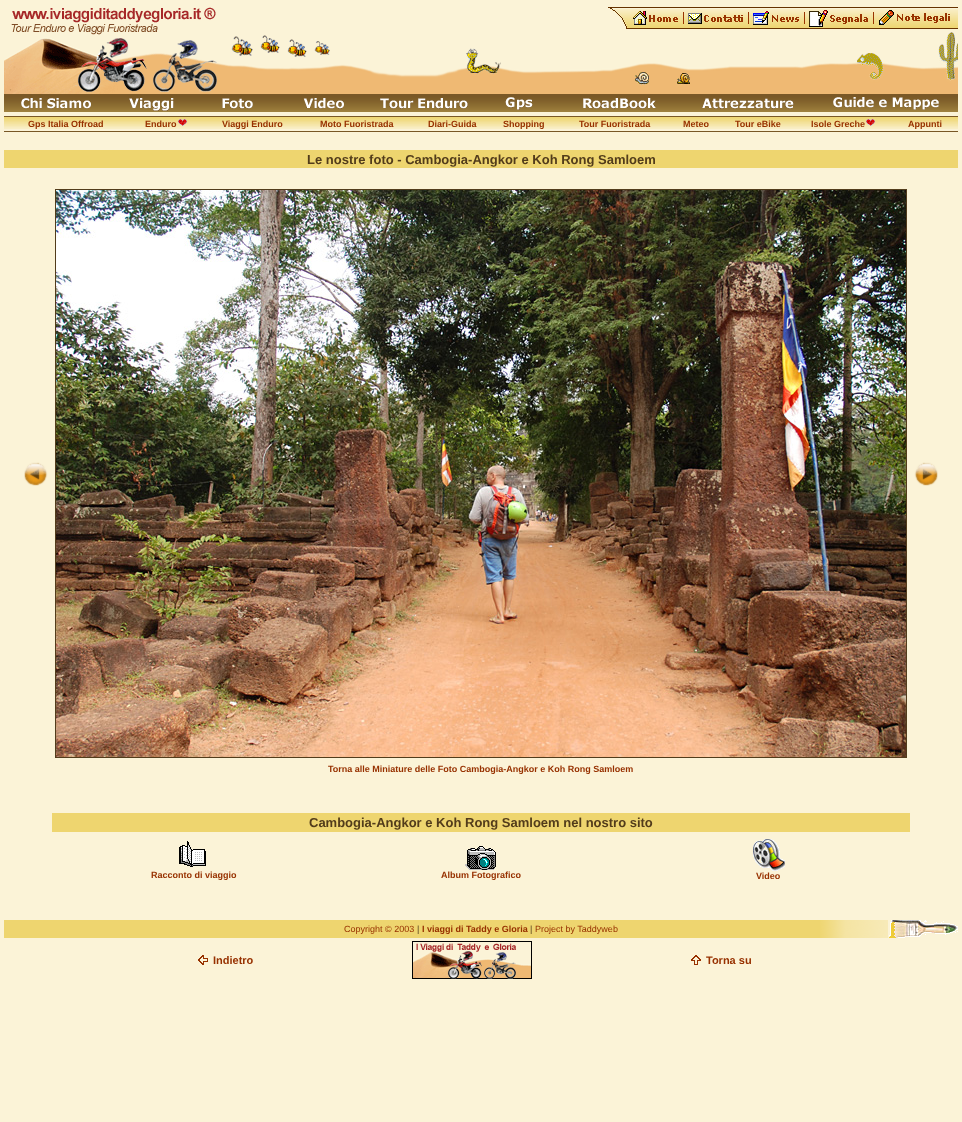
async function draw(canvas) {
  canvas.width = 962;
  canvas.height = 1122;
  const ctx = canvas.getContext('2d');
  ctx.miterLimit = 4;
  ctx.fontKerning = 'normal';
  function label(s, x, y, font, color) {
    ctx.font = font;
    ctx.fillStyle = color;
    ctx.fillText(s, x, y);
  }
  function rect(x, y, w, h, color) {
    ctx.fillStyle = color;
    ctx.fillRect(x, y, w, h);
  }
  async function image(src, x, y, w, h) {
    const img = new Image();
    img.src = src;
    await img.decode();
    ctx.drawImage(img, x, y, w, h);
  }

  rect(0, 0, 962, 1122, '#fbf3d7');
  await image('assets/img1.png', 4, 7, 225, 87);
  await image('assets/img2.png', 229, 35, 110, 59);
  await image('assets/img3.png', 339, 32, 619, 62);
  await image('assets/img4.png', 608, 7, 22, 22);
  await image('assets/img5.png', 630, 7, 56, 22);
  await image('assets/img6.png', 633, 11, 14, 14);
  await image('assets/img7.png', 649, 15, 29, 7);
  rect(683, 12, 1, 12, '#930');
  await image('assets/img8.png', 686, 7, 65, 22);
  await image('assets/img9.png', 688, 13, 14, 11);
  await image('assets/img10.png', 704, 15, 39, 7);
  rect(748, 12, 1, 12, '#930');
  await image('assets/img5.png', 751, 7, 56, 22);
  await image('assets/img11.png', 753, 11, 16, 14);
  await image('assets/img12.png', 772, 15, 27, 7);
  rect(804, 12, 1, 12, '#930');
  await image('assets/img13.png', 807, 7, 69, 22);
  await image('assets/img14.png', 809, 10, 19, 17);
  await image('assets/img15.png', 830, 14, 38, 10);
  rect(873, 12, 1, 12, '#930');
  await image('assets/img16.png', 876, 7, 82, 22);
  await image('assets/img17.png', 879, 10, 15, 15);
  await image('assets/img18.png', 897, 13, 53, 10);
  await image('assets/img19.png', 4, 94, 954, 18);
  await image('assets/img20.png', 21, 98, 70, 11);
  await image('assets/img21.png', 129, 98, 45, 13);
  await image('assets/img22.png', 222, 98, 31, 11);
  await image('assets/img23.png', 303, 98, 41, 11);
  await image('assets/img24.png', 380, 98, 88, 11);
  await image('assets/img25.png', 505, 97, 28, 13);
  await image('assets/img26.png', 583, 98, 73, 11);
  await image('assets/img27.png', 702, 98, 92, 11);
  await image('assets/img28.png', 833, 97, 106, 13);
  rect(4, 116, 954, 1, '#785725');
  await image('assets/img29.png', 4, 117, 954, 12);
  label('Gps Italia Offroad', 28, 127, 'bold 9px Liberation Sans', '#973100');
  label('Enduro', 145, 127, 'bold 9px Liberation Sans', '#973100');
  await image('assets/img30.png', 178, 119, 9, 7);
  label('Viaggi Enduro', 222, 127, 'bold 9px Liberation Sans', '#973100');
  label('Moto Fuoristrada', 320, 127, 'bold 9px Liberation Sans', '#973100');
  label('Diari-Guida', 428, 127, 'bold 9px Liberation Sans', '#973100');
  label('Shopping', 503, 127, 'bold 9px Liberation Sans', '#973100');
  label('Tour Fuoristrada', 579, 127, 'bold 9px Liberation Sans', '#973100');
  label('Meteo', 683, 127, 'bold 9px Liberation Sans', '#973100');
  label('Tour eBike', 735, 127, 'bold 9px Liberation Sans', '#973100');
  label('Isole Greche', 811, 127, 'bold 9px Liberation Sans', '#973100');
  await image('assets/img30.png', 866, 119, 9, 7);
  label('Appunti', 908, 127, 'bold 9px Liberation Sans', '#973100');
  rect(4, 131, 954, 1, '#785725');
  rect(4, 150, 954, 18, '#eed56f');
  label('Le nostre foto - Cambogia-Angkor e Koh Rong Samloem', 307, 164, 'bold 13px Liberation Sans', '#523c1b');
  await image('assets/img31.png', 24, 462, 24, 24);
  ctx.strokeStyle = '#523c1b';
  ctx.strokeRect(55.5, 189.5, 851, 568);
  await image('assets/img32.png', 56, 190, 850, 567);
  await image('assets/img33.png', 914, 462, 24, 24);
  label('Torna alle Miniature delle Foto Cambogia-Angkor e Koh Rong Samloem', 328, 772, 'bold 9px Liberation Sans', '#973100');
  rect(52, 813, 858, 19, '#eed56f');
  label('Cambogia-Angkor e Koh Rong Samloem nel nostro sito', 309, 827, 'bold 13px Liberation Sans', '#523c1b');
  await image('assets/img34.png', 179, 841, 27, 26);
  label('Racconto di viaggio', 151, 878, 'bold 9px Liberation Sans', '#973100');
  await image('assets/img35.png', 465, 846, 31, 24);
  label('Album Fotografico', 441, 878, 'bold 9px Liberation Sans', '#973100');
  await image('assets/img36.png', 753, 839, 32, 32);
  label('Video', 756, 879, 'bold 9px Liberation Sans', '#973100');
  rect(4, 920, 816, 18, '#eed56f');
  label('Copyright © 2003', 344, 932, '9px Liberation Sans', '#973100');
  label('|', 417, 932, '9px Liberation Sans', '#523c1b');
  label('I viaggi di Taddy e Gloria', 422, 932, 'bold 9px Liberation Sans', '#973100');
  label('|', 530, 932, '9px Liberation Sans', '#523c1b');
  label('Project by Taddyweb', 535, 932, '9px Liberation Sans', '#973100');
  await image('assets/img37.png', 820, 920, 68, 18);
  await image('assets/img38.png', 889, 920, 69, 18);
  await image('assets/img39.png', 198, 955, 10, 10);
  label('Indietro', 213, 964, 'bold 11px Liberation Sans', '#973100');
  await image('assets/img40.png', 412, 941, 120, 38);
  await image('assets/img41.png', 691, 955, 10, 10);
  label('Torna su', 706, 964, 'bold 11px Liberation Sans', '#973100');
}

draw(document.querySelector('canvas'));
